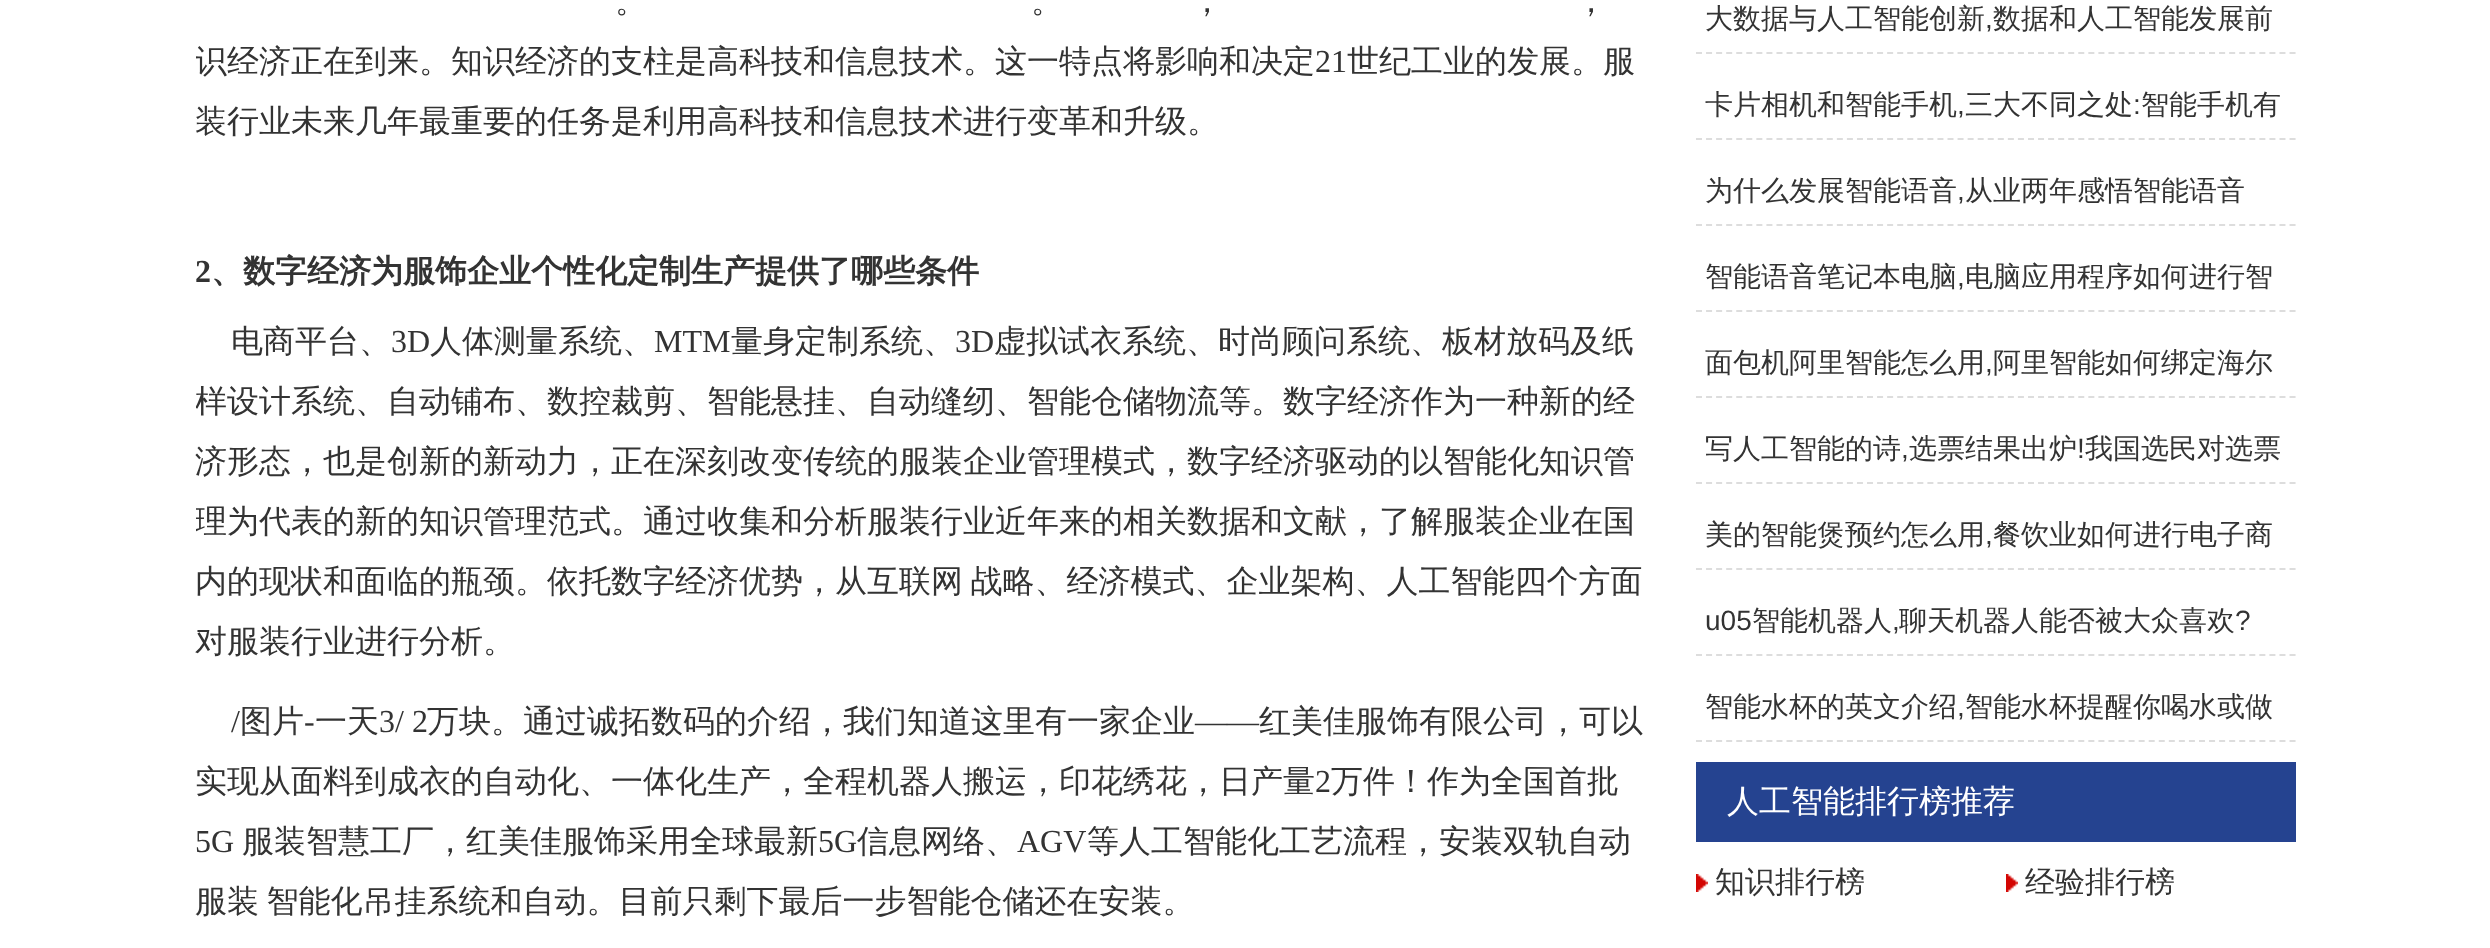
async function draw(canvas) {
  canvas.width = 2490;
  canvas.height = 948;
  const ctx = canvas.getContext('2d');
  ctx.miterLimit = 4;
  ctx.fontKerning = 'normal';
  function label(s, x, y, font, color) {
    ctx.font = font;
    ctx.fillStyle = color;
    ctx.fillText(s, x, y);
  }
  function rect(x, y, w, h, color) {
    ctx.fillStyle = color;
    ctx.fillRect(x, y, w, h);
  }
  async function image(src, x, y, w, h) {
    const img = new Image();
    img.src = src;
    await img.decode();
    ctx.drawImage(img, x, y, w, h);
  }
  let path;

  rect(0, 0, 2490, 948, '#fff');
  label('。', 615, 12, '500 32px WenQuanYi Zen Hei', '#333');
  label('。', 1031, 12, '500 32px WenQuanYi Zen Hei', '#333');
  label('，', 1191, 12, '500 32px WenQuanYi Zen Hei', '#333');
  label('，', 1575, 12, '500 32px WenQuanYi Zen Hei', '#333');
  ctx.save();
  ctx.beginPath();
  ctx.rect(196, 0, 1460, 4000);
  ctx.clip();
  label('识经济正在到来。知识经济的支柱是高科技和信息技术。这一特点将影响和决定', 195, 72, '500 32px WenQuanYi Zen Hei', '#333');
  ctx.restore();
  label('21', 1315, 72, '32px Liberation Serif', '#333');
  label('世纪工业的发展。服', 1347, 72, '500 32px WenQuanYi Zen Hei', '#333');
  label('装行业未来几年最重要的任务是利用高科技和信息技术进行变革和升级。', 195, 132, '500 32px WenQuanYi Zen Hei', '#333');
  label('2', 195, 282, 'bold 32px Liberation Serif', '#333');
  label('、数字经济为服饰企业个性化定制生产提供了哪些条件', 211, 282, 'bold 32px WenQuanYi Zen Hei', '#333');
  label('电商平台、', 231, 352, '500 32px WenQuanYi Zen Hei', '#333');
  label('3D', 391, 352, '32px Liberation Serif', '#333');
  label('人体测量系统、', 430, 352, '500 32px WenQuanYi Zen Hei', '#333');
  label('MTM', 654, 352, '32px Liberation Serif', '#333');
  label('量身定制系统、', 731, 352, '500 32px WenQuanYi Zen Hei', '#333');
  label('3D', 955, 352, '32px Liberation Serif', '#333');
  label('虚拟试衣系统、时尚顾问系统、板材放码及纸', 994, 352, '500 32px WenQuanYi Zen Hei', '#333');
  ctx.save();
  ctx.beginPath();
  ctx.rect(196, 0, 1460, 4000);
  ctx.clip();
  label('样设计系统、自动铺布、数控裁剪、智能悬挂、自动缝纫、智能仓储物流等。数字经济作为一种新的经', 195, 412, '500 32px WenQuanYi Zen Hei', '#333');
  ctx.restore();
  label('济形态，也是创新的新动力，正在深刻改变传统的服装企业管理模式，数字经济驱动的以智能化知识管', 195, 472, '500 32px WenQuanYi Zen Hei', '#333');
  ctx.save();
  ctx.beginPath();
  ctx.rect(196, 0, 1460, 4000);
  ctx.clip();
  label('理为代表的新的知识管理范式。通过收集和分析服装行业近年来的相关数据和文献，了解服装企业在国', 195, 532, '500 32px WenQuanYi Zen Hei', '#333');
  ctx.restore();
  ctx.wordSpacing = '-2px';
  label('内的现状和面临的瓶颈。依托数字经济优势，从互联网 战略、经济模式、企业架构、人工智能四个方面', 195, 592, '500 32px WenQuanYi Zen Hei', '#333');
  ctx.wordSpacing = '0px';
  label('对服装行业进行分析。', 195, 652, '500 32px WenQuanYi Zen Hei', '#333');
  label('/', 231, 732, '32px Liberation Serif', '#333');
  label('图片', 240, 732, '500 32px WenQuanYi Zen Hei', '#333');
  label('-', 304, 732, '32px Liberation Serif', '#333');
  label('一天', 315, 732, '500 32px WenQuanYi Zen Hei', '#333');
  label('3/ 2', 379, 732, '32px Liberation Serif', '#333');
  label('万块。通过诚拓数码的介绍，我们知道这里有一家企业', 427, 732, '500 32px WenQuanYi Zen Hei', '#333');
  label('——', 1195, 732, '32px Liberation Serif', '#333');
  label('红美佳服饰有限公司，可以', 1259, 732, '500 32px WenQuanYi Zen Hei', '#333');
  label('实现从面料到成衣的自动化、一体化生产，全程机器人搬运，印花绣花，日产量', 195, 792, '500 32px WenQuanYi Zen Hei', '#333');
  label('2', 1315, 792, '32px Liberation Serif', '#333');
  label('万件！作为全国首批', 1331, 792, '500 32px WenQuanYi Zen Hei', '#333');
  label('5G', 195, 852, '32px Liberation Serif', '#333');
  label('服装智慧工厂，红美佳服饰采用全球最新', 242, 852, '500 32px WenQuanYi Zen Hei', '#333');
  label('5G', 818, 852, '32px Liberation Serif', '#333');
  label('信息网络、', 857, 852, '500 32px WenQuanYi Zen Hei', '#333');
  label('AGV', 1017, 852, '32px Liberation Serif', '#333');
  label('等人工智能化工艺流程，安装双轨自动', 1087, 852, '500 32px WenQuanYi Zen Hei', '#333');
  ctx.wordSpacing = '-2px';
  label('服装 智能化吊挂系统和自动。目前只剩下最后一步智能仓储还在安装。', 195, 912, '500 32px WenQuanYi Zen Hei', '#333');
  path = new Path2D('M1696 53H2296');
  ctx.strokeStyle = '#ddd';
  ctx.lineWidth = 2;
  ctx.setLineDash([6, 4.06]);
  ctx.stroke(path);
  ctx.wordSpacing = '0px';
  label('大数据与人工智能创新', 1705, 28, '500 28px WenQuanYi Zen Hei', '#333');
  label(',', 1985, 28, '28px Liberation Sans', '#333');
  label('数据和人工智能发展前', 1993, 28, '500 28px WenQuanYi Zen Hei', '#333');
  path = new Path2D('M1696 139H2296');
  ctx.stroke(path);
  label('卡片相机和智能手机', 1705, 114, '500 28px WenQuanYi Zen Hei', '#333');
  label(',', 1957, 114, '28px Liberation Sans', '#333');
  label('三大不同之处', 1965, 114, '500 28px WenQuanYi Zen Hei', '#333');
  label(':', 2133, 114, '28px Liberation Sans', '#333');
  label('智能手机有', 2141, 114, '500 28px WenQuanYi Zen Hei', '#333');
  path = new Path2D('M1696 225H2296');
  ctx.stroke(path);
  label('为什么发展智能语音', 1705, 200, '500 28px WenQuanYi Zen Hei', '#333');
  label(',', 1957, 200, '28px Liberation Sans', '#333');
  label('从业两年感悟智能语音', 1965, 200, '500 28px WenQuanYi Zen Hei', '#333');
  path = new Path2D('M1696 311H2296');
  ctx.stroke(path);
  label('智能语音笔记本电脑', 1705, 286, '500 28px WenQuanYi Zen Hei', '#333');
  label(',', 1957, 286, '28px Liberation Sans', '#333');
  label('电脑应用程序如何进行智', 1965, 286, '500 28px WenQuanYi Zen Hei', '#333');
  path = new Path2D('M1696 397H2296');
  ctx.stroke(path);
  label('面包机阿里智能怎么用', 1705, 372, '500 28px WenQuanYi Zen Hei', '#333');
  label(',', 1985, 372, '28px Liberation Sans', '#333');
  label('阿里智能如何绑定海尔', 1993, 372, '500 28px WenQuanYi Zen Hei', '#333');
  path = new Path2D('M1696 483H2296');
  ctx.stroke(path);
  label('写人工智能的诗', 1705, 458, '500 28px WenQuanYi Zen Hei', '#333');
  label(',', 1901, 458, '28px Liberation Sans', '#333');
  label('选票结果出炉', 1909, 458, '500 28px WenQuanYi Zen Hei', '#333');
  label('!', 2077, 458, '28px Liberation Sans', '#333');
  label('我国选民对选票', 2085, 458, '500 28px WenQuanYi Zen Hei', '#333');
  path = new Path2D('M1696 569H2296');
  ctx.stroke(path);
  label('美的智能煲预约怎么用', 1705, 544, '500 28px WenQuanYi Zen Hei', '#333');
  label(',', 1985, 544, '28px Liberation Sans', '#333');
  label('餐饮业如何进行电子商', 1993, 544, '500 28px WenQuanYi Zen Hei', '#333');
  path = new Path2D('M1696 655H2296');
  ctx.stroke(path);
  label('u05', 1705, 630, '28px Liberation Sans', '#333');
  label('智能机器人', 1752, 630, '500 28px WenQuanYi Zen Hei', '#333');
  label(',', 1892, 630, '28px Liberation Sans', '#333');
  label('聊天机器人能否被大众喜欢', 1899, 630, '500 28px WenQuanYi Zen Hei', '#333');
  label('?', 2235, 630, '28px Liberation Sans', '#333');
  path = new Path2D('M1696 741H2296');
  ctx.stroke(path);
  label('智能水杯的英文介绍', 1705, 716, '500 28px WenQuanYi Zen Hei', '#333');
  label(',', 1957, 716, '28px Liberation Sans', '#333');
  label('智能水杯提醒你喝水或做', 1965, 716, '500 28px WenQuanYi Zen Hei', '#333');
  rect(1696, 762, 600, 80, '#254390');
  label('人工智能排行榜推荐', 1727, 812, '500 32px WenQuanYi Zen Hei', '#fff');
  await image('assets/img1.png', 1696, 874, 12, 18);
  label('知识排行榜', 1715, 892, '500 30px WenQuanYi Zen Hei', '#333');
  await image('assets/img2.png', 2006, 874, 12, 18);
  label('经验排行榜', 2025, 892, '500 30px WenQuanYi Zen Hei', '#333');
}

draw(document.querySelector('canvas'));
